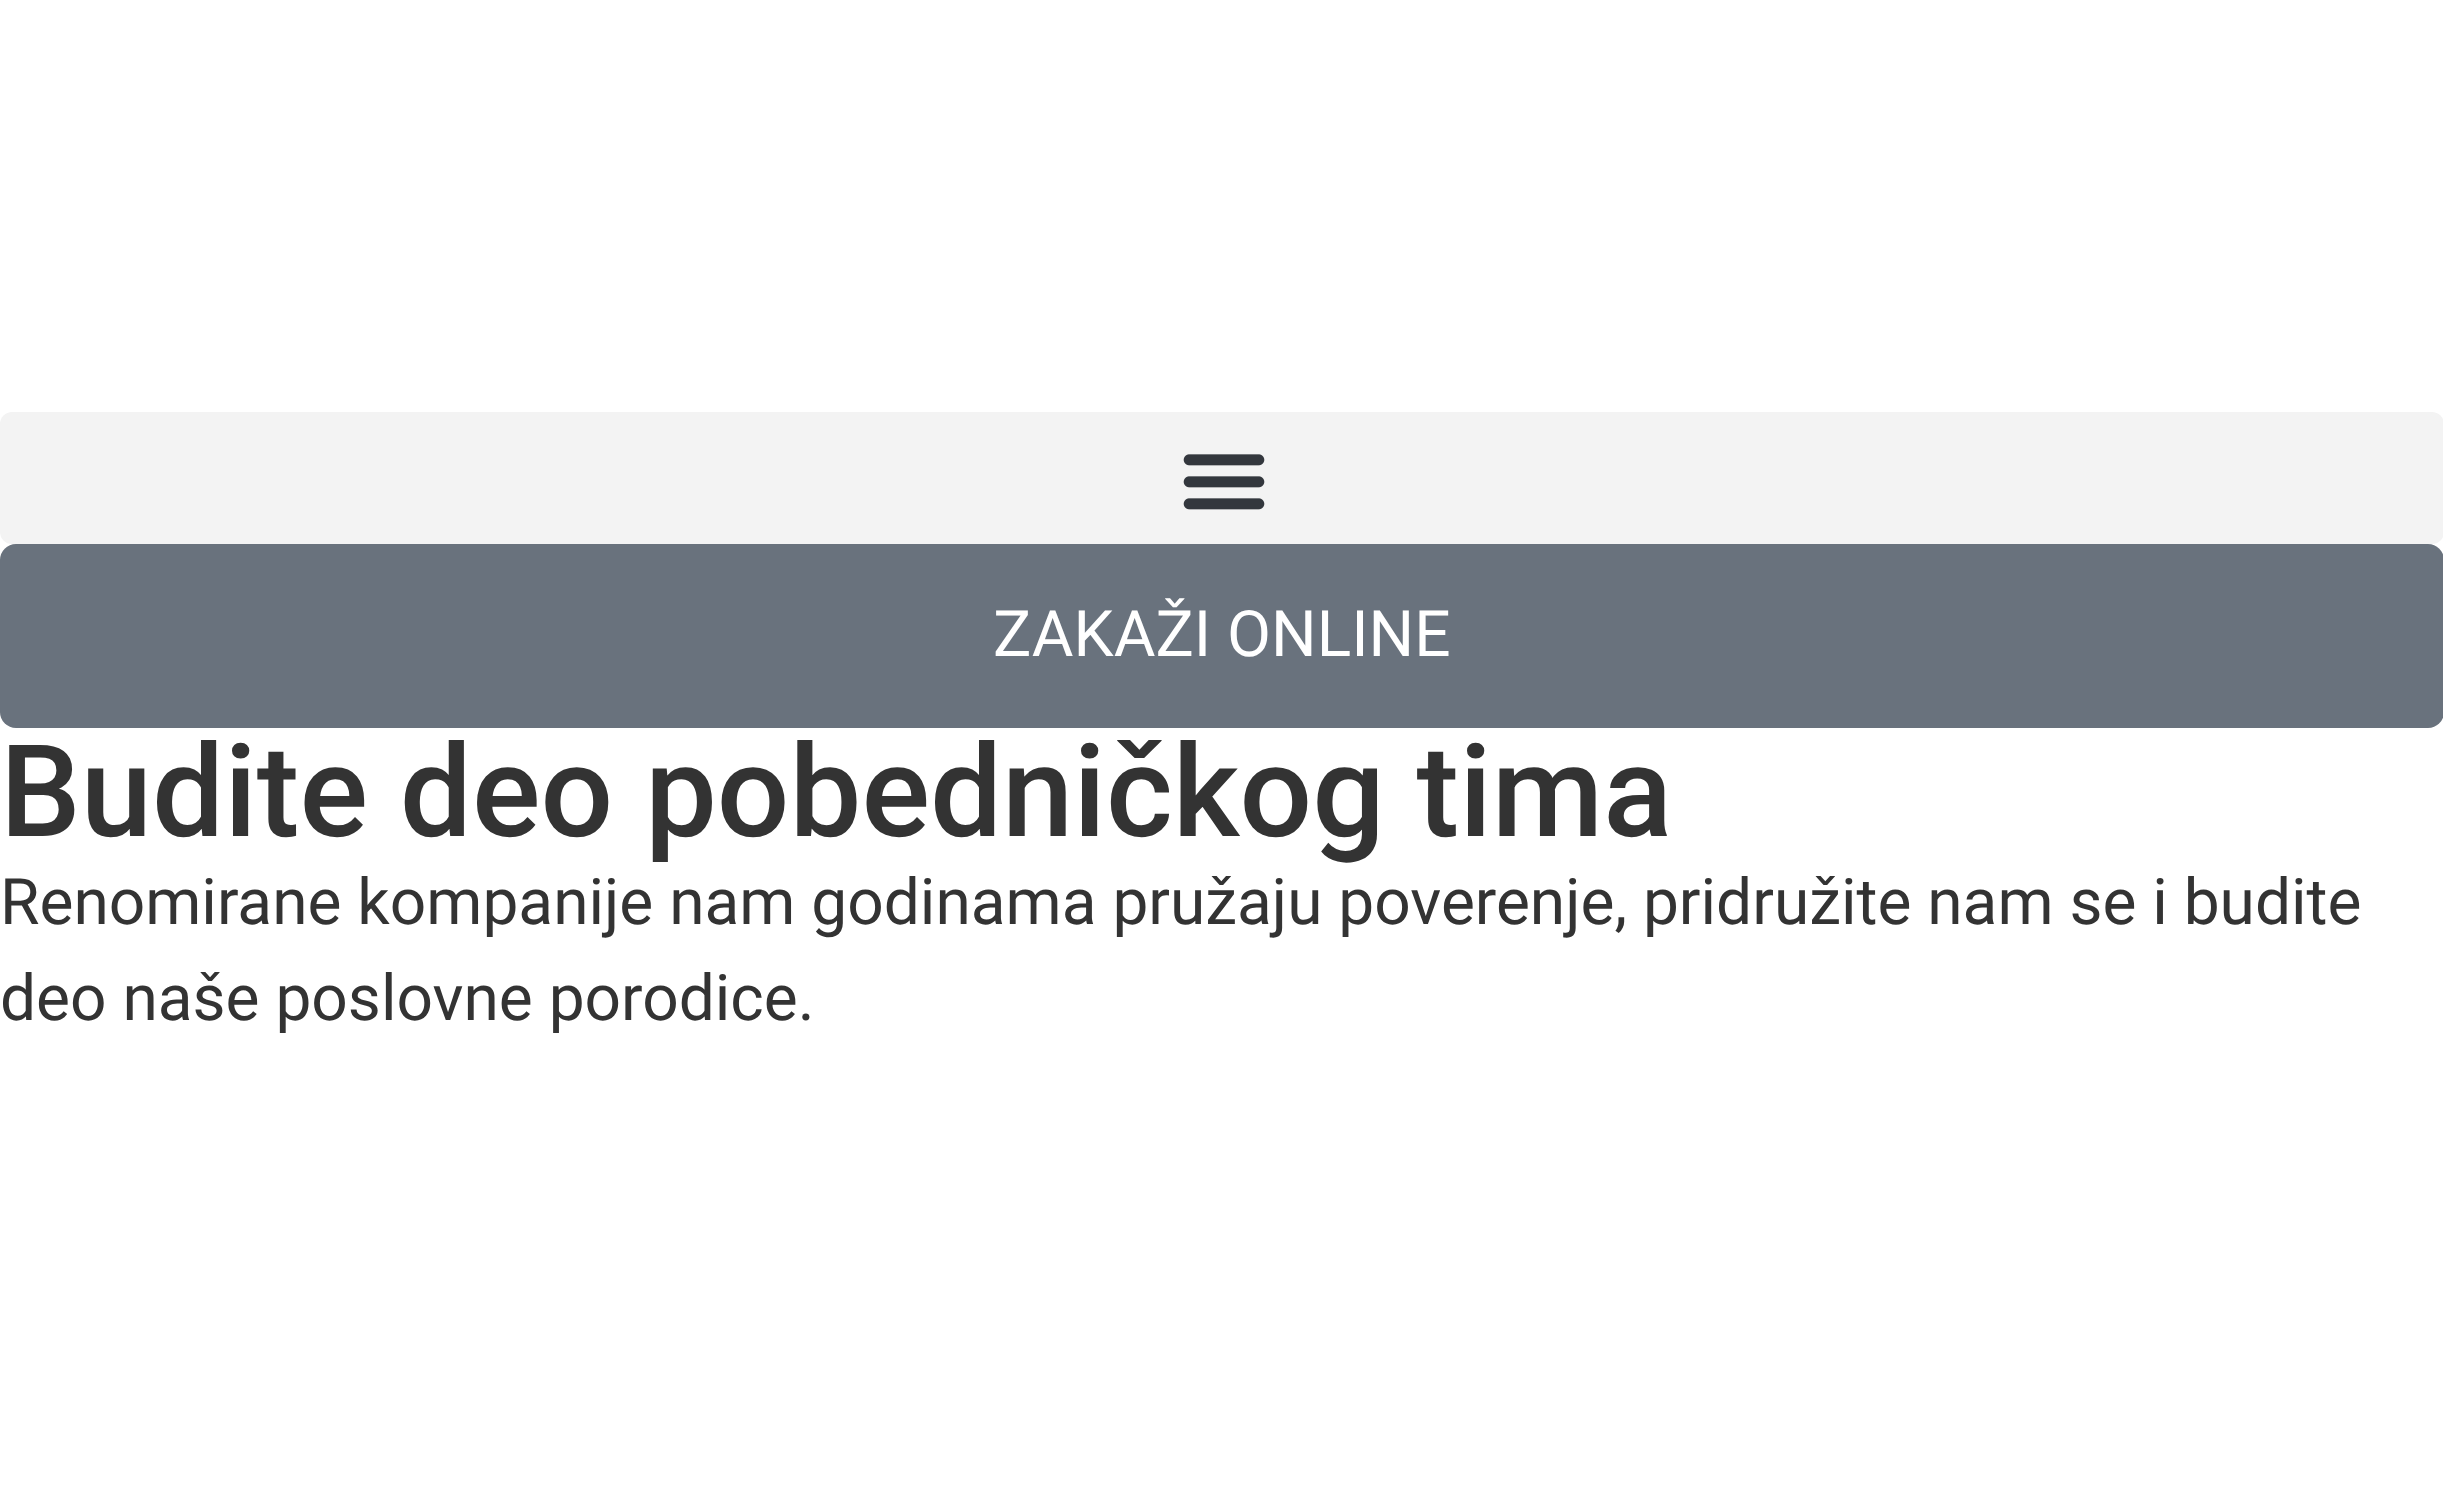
async function draw(canvas) {
  canvas.width = 2443;
  canvas.height = 1504;
  const ctx = canvas.getContext('2d');
  ctx.miterLimit = 4;
  ctx.fontKerning = 'normal';
  function label(s, x, y, font, color) {
    ctx.font = font;
    ctx.fillStyle = color;
    ctx.fillText(s, x, y);
  }
  function rect(x, y, w, h, color) {
    ctx.fillStyle = color;
    ctx.fillRect(x, y, w, h);
  }
  function roundedRect(x, y, w, h, r, color) {
    ctx.fillStyle = color;
    ctx.beginPath();
    ctx.roundRect(x, y, w, h, r);
    ctx.fill();
  }
  async function image(src, x, y, w, h) {
    const img = new Image();
    img.src = src;
    await img.decode();
    ctx.drawImage(img, x, y, w, h);
  }

  rect(0, 0, 2443, 1504, '#fff');
  roundedRect(0, 412, 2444, 132, 12, '#f3f3f3');
  await image('assets/img1.png', 1183, 454, 82, 56);
  roundedRect(0, 544, 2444, 184, 16, '#69727d');
  label('ZAKAŽI ONLINE', 993, 656, '64px Roboto', '#fff');
  label('Budite deo pobedničkog tima', 0, 836, '500 128px Roboto', '#333');
  label('Renomirane kompanije nam godinama pružaju poverenje, pridružite nam se i budite', 0, 924, '64px Roboto', '#333');
  label('deo naše poslovne porodice.', 0, 1020, '64px Roboto', '#333');
}

draw(document.querySelector('canvas'));
